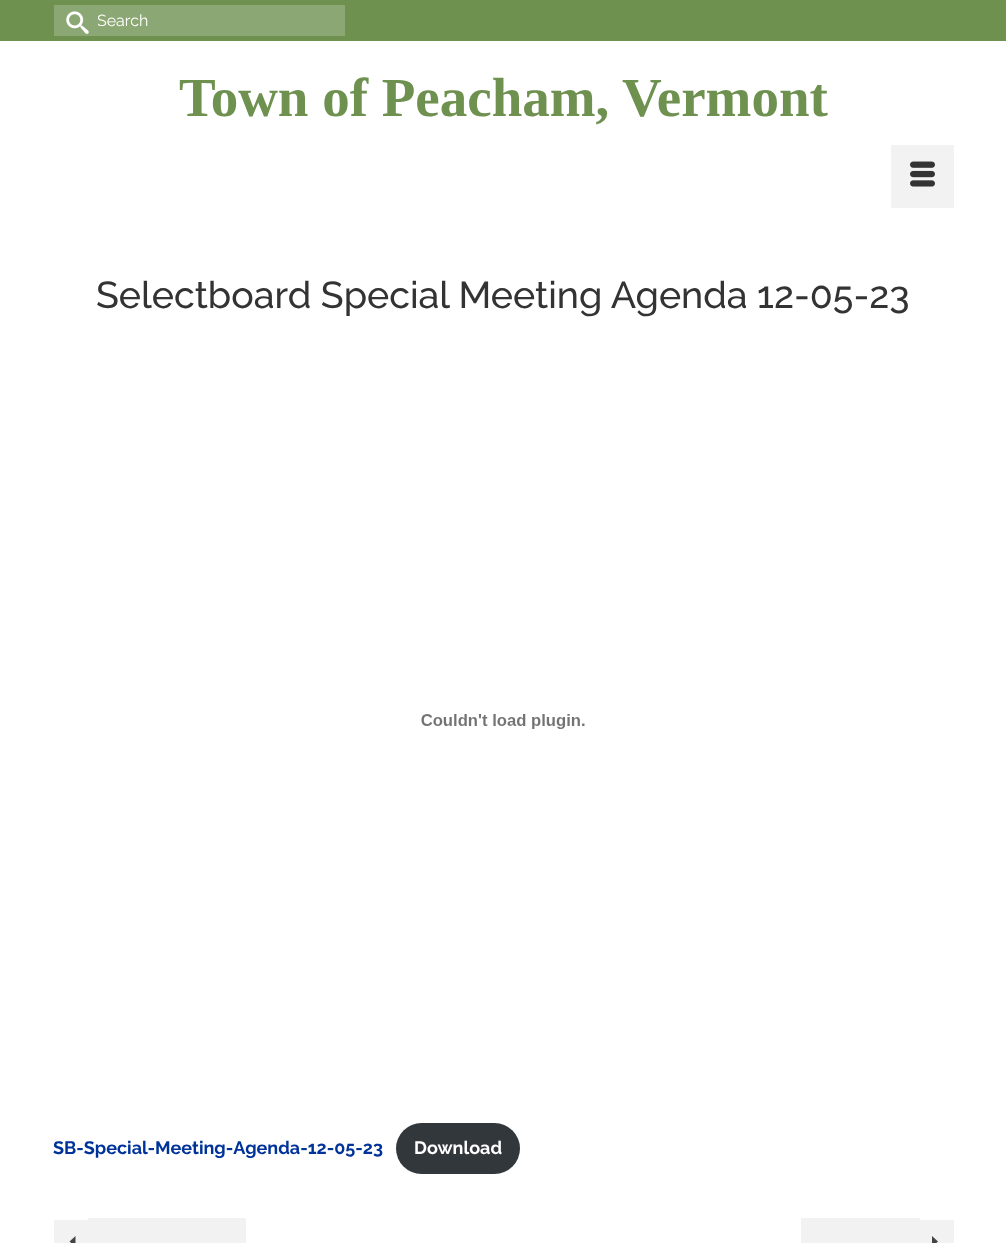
async function draw(canvas) {
  canvas.width = 1006;
  canvas.height = 1243;
  const ctx = canvas.getContext('2d');
  ctx.miterLimit = 4;
  ctx.fontKerning = 'normal';
  function label(s, x, y, font, color) {
    ctx.font = font;
    ctx.fillStyle = color;
    ctx.fillText(s, x, y);
  }
  function rect(x, y, w, h, color) {
    ctx.fillStyle = color;
    ctx.fillRect(x, y, w, h);
  }
  function roundedRect(x, y, w, h, r, color) {
    ctx.fillStyle = color;
    ctx.beginPath();
    ctx.roundRect(x, y, w, h, r);
    ctx.fill();
  }
  async function image(src, x, y, w, h) {
    const img = new Image();
    img.src = src;
    await img.decode();
    ctx.drawImage(img, x, y, w, h);
  }
  let path;

  rect(0, 0, 1006, 1243, '#fff');
  rect(0, 0, 1006, 41, '#6e9150');
  rect(54, 5, 291, 31, '#8ba773');
  await image('assets/img1.png', 66, 11, 23, 23);
  ctx.save();
  ctx.beginPath();
  ctx.rect(98, 11, 241, 19);
  ctx.clip();
  label('Search', 97, 26, '16px Raleway', '#fff');
  ctx.restore();
  label('Town of Peacham, Vermont', 179, 116, 'bold 55px Liberation Serif', '#6e9150');
  rect(891, 145, 63, 63, '#f2f2f2');
  await image('assets/img2.png', 910, 161, 25, 26);
  label('Selectboard Special Meeting Agenda 12-05-23', 96, 308, '500 37.5px Raleway', '#333');
  await image('assets/img3.png', 421, 714, 164, 15);
  label('SB-Special-Meeting-Agenda-12-05-23', 53, 1154, 'bold 18px Raleway', '#039');
  roundedRect(396, 1123, 124, 51, 25.5, '#32373c');
  label('Download', 414, 1154, 'bold 18px Raleway', '#fff');
  rect(54, 1220, 34, 23, '#f2f2f2');
  rect(88, 1218, 158, 25, '#f2f2f2');
  ctx.fillStyle = '#444';
  path = new Path2D('M75.5 1236L69.5 1241.5L75.5 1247Z');
  ctx.fill(path);
  rect(801, 1218, 119, 25, '#f2f2f2');
  rect(920, 1220, 34, 23, '#f2f2f2');
  ctx.fillStyle = '#444';
  path = new Path2D('M932 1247L938 1241.5L932 1236Z');
  ctx.fill(path);
}

draw(document.querySelector('canvas'));
